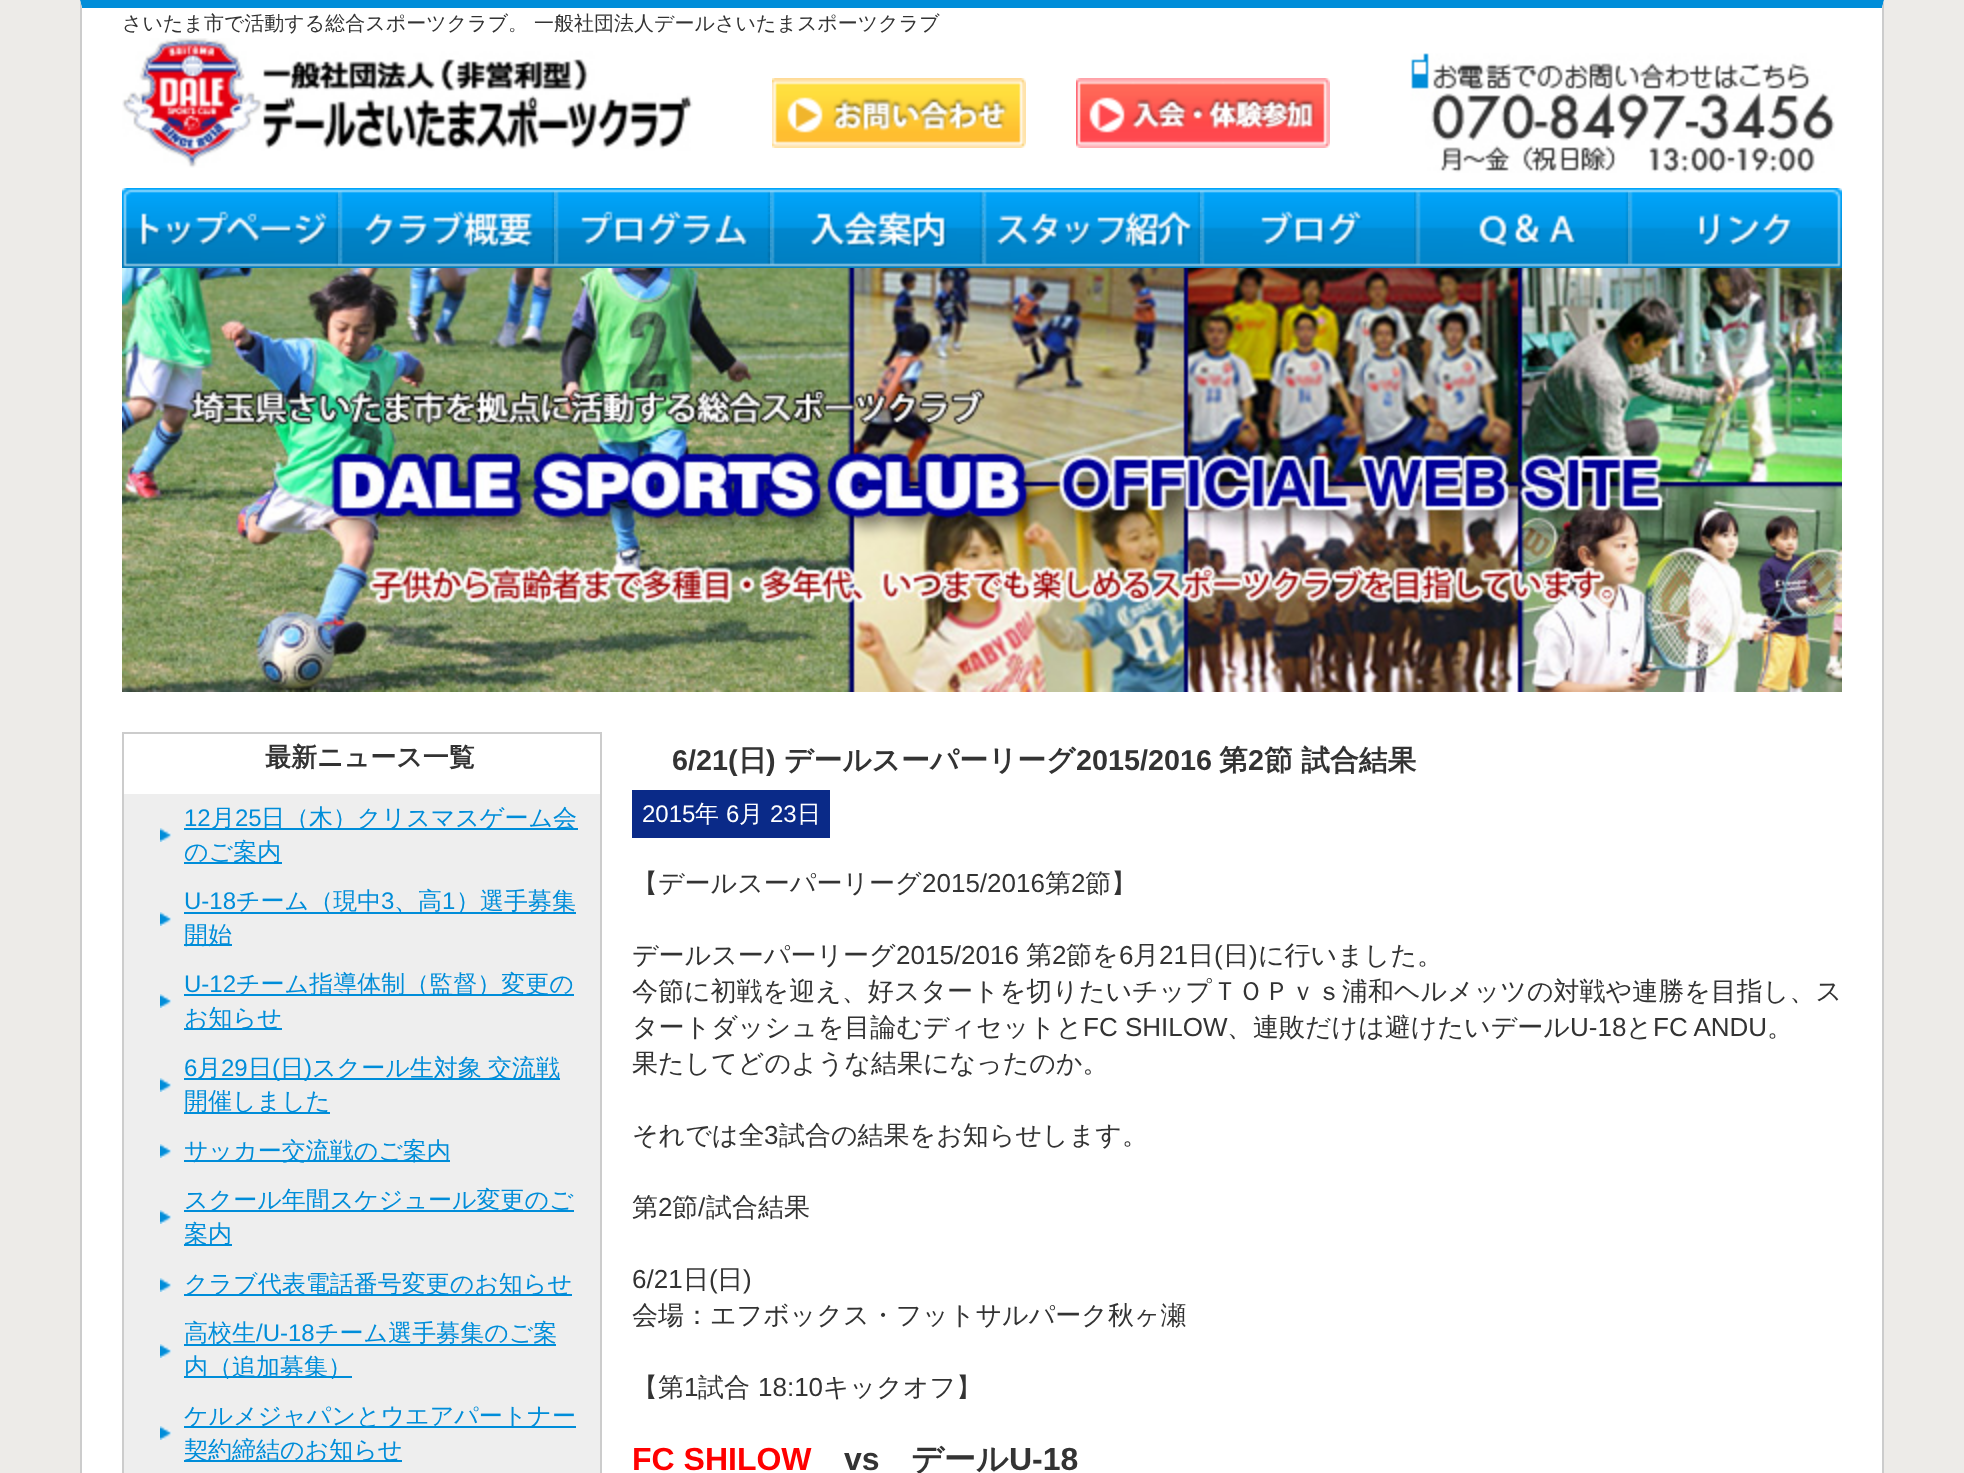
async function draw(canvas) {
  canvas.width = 1964;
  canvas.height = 1473;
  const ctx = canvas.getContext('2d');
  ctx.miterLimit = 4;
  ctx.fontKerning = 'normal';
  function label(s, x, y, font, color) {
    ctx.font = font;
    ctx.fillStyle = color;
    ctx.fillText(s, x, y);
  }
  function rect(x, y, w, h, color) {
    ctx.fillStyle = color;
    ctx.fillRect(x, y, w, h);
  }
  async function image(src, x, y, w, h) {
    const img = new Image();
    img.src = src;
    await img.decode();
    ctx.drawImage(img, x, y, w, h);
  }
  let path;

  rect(0, 0, 1964, 1473, '#edebe8');
  rect(80, 0, 1804, 1473, '#fff');
  ctx.fillStyle = '#008dd9';
  path = new Path2D('M80 0H1884L1882 8H82Z');
  ctx.fill(path);
  ctx.fillStyle = '#ccc';
  path = new Path2D('M1884 0V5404H1882V8Z');
  ctx.fill(path);
  path = new Path2D('M80 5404V0L82 8V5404Z');
  ctx.fill(path);
  label('さいたま市で活動する総合スポーツクラブ。 一般社団法人デールさいたまスポーツクラブ', 122, 30, '500 20px WenQuanYi Zen Hei', '#333');
  await image('assets/img1.png', 122, 38, 571, 130);
  await image('assets/img2.png', 772, 78, 254, 70);
  await image('assets/img3.png', 1076, 78, 254, 70);
  await image('assets/img4.png', 1410, 53, 425, 120);
  await image('assets/img5.png', 122, 188, 216, 80);
  await image('assets/img6.png', 338, 188, 216, 80);
  await image('assets/img7.png', 554, 188, 216, 80);
  await image('assets/img8.png', 770, 188, 214, 80);
  await image('assets/img9.png', 984, 188, 216, 80);
  await image('assets/img10.png', 1200, 188, 214, 80);
  await image('assets/img11.png', 1414, 188, 214, 80);
  await image('assets/img12.png', 1628, 188, 214, 80);
  await image('assets/img13.png', 122, 268, 1720, 424);
  rect(122, 732, 480, 2, '#ccc');
  rect(600, 732, 2, 741, '#ccc');
  rect(122, 732, 2, 741, '#ccc');
  label('最新ニュース一覧', 265, 766, 'bold 26px WenQuanYi Zen Hei', '#333');
  rect(124, 794, 476, 679, '#eee');
  await image('assets/img14.png', 160, 828, 12, 14);
  label('12', 184, 826, '24px Liberation Sans', '#008dd9');
  rect(184, 828, 394, 2, '#008dd9');
  label('月', 211, 826, '500 24px WenQuanYi Zen Hei', '#008dd9');
  label('25', 235, 826, '24px Liberation Sans', '#008dd9');
  label('日（木）クリスマスゲーム会', 261, 826, '500 24px WenQuanYi Zen Hei', '#008dd9');
  rect(184, 862, 98, 2, '#008dd9');
  label('のご案内', 184, 860, '500 24px WenQuanYi Zen Hei', '#008dd9');
  await image('assets/img14.png', 160, 912, 12, 14);
  label('U-18', 184, 909, '24px Liberation Sans', '#008dd9');
  rect(184, 912, 392, 2, '#008dd9');
  label('チーム（現中', 236, 909, '500 24px WenQuanYi Zen Hei', '#008dd9');
  label('3', 381, 909, '24px Liberation Sans', '#008dd9');
  label('、高', 394, 909, '500 24px WenQuanYi Zen Hei', '#008dd9');
  label('1', 442, 909, '24px Liberation Sans', '#008dd9');
  label('）選手募集', 456, 909, '500 24px WenQuanYi Zen Hei', '#008dd9');
  rect(184, 944, 48, 2, '#008dd9');
  label('開始', 184, 943, '500 24px WenQuanYi Zen Hei', '#008dd9');
  await image('assets/img14.png', 160, 994, 12, 14);
  label('U-12', 184, 992, '24px Liberation Sans', '#008dd9');
  rect(184, 994, 390, 2, '#008dd9');
  label('チーム指導体制（監督）変更の', 236, 992, '500 24px WenQuanYi Zen Hei', '#008dd9');
  rect(184, 1028, 98, 2, '#008dd9');
  label('お知らせ', 184, 1026, '500 24px WenQuanYi Zen Hei', '#008dd9');
  await image('assets/img14.png', 160, 1078, 12, 14);
  label('6', 184, 1076, '24px Liberation Sans', '#008dd9');
  rect(184, 1078, 376, 2, '#008dd9');
  label('月', 197, 1076, '500 24px WenQuanYi Zen Hei', '#008dd9');
  label('29', 221, 1076, '24px Liberation Sans', '#008dd9');
  label('日', 248, 1076, '500 24px WenQuanYi Zen Hei', '#008dd9');
  label('(', 272, 1076, '24px Liberation Sans', '#008dd9');
  label('日', 280, 1076, '500 24px WenQuanYi Zen Hei', '#008dd9');
  label(')', 304, 1076, '24px Liberation Sans', '#008dd9');
  ctx.wordSpacing = '-1px';
  label('スクール生対象 交流戦', 312, 1076, '500 24px WenQuanYi Zen Hei', '#008dd9');
  rect(184, 1112, 146, 2, '#008dd9');
  ctx.wordSpacing = '0px';
  label('開催しました', 184, 1109, '500 24px WenQuanYi Zen Hei', '#008dd9');
  await image('assets/img14.png', 160, 1144, 12, 14);
  rect(184, 1160, 266, 2, '#008dd9');
  label('サッカー交流戦のご案内', 184, 1159, '500 24px WenQuanYi Zen Hei', '#008dd9');
  await image('assets/img14.png', 160, 1210, 12, 14);
  rect(184, 1210, 390, 2, '#008dd9');
  label('スクール年間スケジュール変更のご', 184, 1208, '500 24px WenQuanYi Zen Hei', '#008dd9');
  rect(184, 1244, 48, 2, '#008dd9');
  label('案内', 184, 1242, '500 24px WenQuanYi Zen Hei', '#008dd9');
  await image('assets/img14.png', 160, 1278, 12, 14);
  rect(184, 1294, 388, 2, '#008dd9');
  label('クラブ代表電話番号変更のお知らせ', 184, 1292, '500 24px WenQuanYi Zen Hei', '#008dd9');
  await image('assets/img14.png', 160, 1344, 12, 14);
  rect(184, 1344, 372, 2, '#008dd9');
  label('高校生', 184, 1341, '500 24px WenQuanYi Zen Hei', '#008dd9');
  label('/U-18', 256, 1341, '24px Liberation Sans', '#008dd9');
  label('チーム選手募集のご案', 315, 1341, '500 24px WenQuanYi Zen Hei', '#008dd9');
  rect(184, 1376, 168, 2, '#008dd9');
  label('内（追加募集）', 184, 1375, '500 24px WenQuanYi Zen Hei', '#008dd9');
  await image('assets/img14.png', 160, 1426, 12, 14);
  rect(184, 1426, 392, 2, '#008dd9');
  label('ケルメジャパンとウエアパートナー', 184, 1424, '500 24px WenQuanYi Zen Hei', '#008dd9');
  rect(184, 1460, 218, 2, '#008dd9');
  label('契約締結のお知らせ', 184, 1458, '500 24px WenQuanYi Zen Hei', '#008dd9');
  label('6/21(', 672, 770, 'bold 28.75px Liberation Sans', '#333');
  label('日', 738, 770, 'bold 28.75px WenQuanYi Zen Hei', '#333');
  label(')', 766, 770, 'bold 28.75px Liberation Sans', '#333');
  label('デールスーパーリーグ', 784, 770, 'bold 28.75px WenQuanYi Zen Hei', '#333');
  label('2015/2016', 1076, 770, 'bold 28.75px Liberation Sans', '#333');
  label('第', 1219, 770, 'bold 28.75px WenQuanYi Zen Hei', '#333');
  label('2', 1248, 770, 'bold 28.75px Liberation Sans', '#333');
  label('節 試合結果', 1264, 770, 'bold 28.75px WenQuanYi Zen Hei', '#333');
  rect(632, 790, 198, 48, '#0a2a88');
  label('2015', 642, 822, '24px Liberation Sans', '#fff');
  label('年', 695, 822, '500 24px WenQuanYi Zen Hei', '#fff');
  label('6', 726, 822, '24px Liberation Sans', '#fff');
  label('月', 739, 822, '500 24px WenQuanYi Zen Hei', '#fff');
  label('23', 770, 822, '24px Liberation Sans', '#fff');
  label('日', 797, 822, '500 24px WenQuanYi Zen Hei', '#fff');
  label('【デールスーパーリーグ', 632, 892, '500 26px WenQuanYi Zen Hei', '#333');
  label('2015/2016', 922, 892, '26px Liberation Sans', '#333');
  label('第', 1045, 892, '500 26px WenQuanYi Zen Hei', '#333');
  label('2', 1071, 892, '26px Liberation Sans', '#333');
  label('節】', 1085, 892, '500 26px WenQuanYi Zen Hei', '#333');
  label('デールスーパーリーグ', 632, 964, '500 26px WenQuanYi Zen Hei', '#333');
  label('2015/2016', 896, 964, '26px Liberation Sans', '#333');
  label('第', 1026, 964, '500 26px WenQuanYi Zen Hei', '#333');
  label('2', 1052, 964, '26px Liberation Sans', '#333');
  label('節を', 1066, 964, '500 26px WenQuanYi Zen Hei', '#333');
  label('6', 1119, 964, '26px Liberation Sans', '#333');
  label('月', 1133, 964, '500 26px WenQuanYi Zen Hei', '#333');
  label('21', 1159, 964, '26px Liberation Sans', '#333');
  label('日', 1188, 964, '500 26px WenQuanYi Zen Hei', '#333');
  label('(', 1214, 964, '26px Liberation Sans', '#333');
  label('日', 1223, 964, '500 26px WenQuanYi Zen Hei', '#333');
  label(')', 1249, 964, '26px Liberation Sans', '#333');
  label('に行いました。', 1258, 964, '500 26px WenQuanYi Zen Hei', '#333');
  label('今節に初戦を迎え、好スタートを切りたいチップＴＯＰｖｓ浦和ヘルメッツの対戦や連勝を目指し、ス', 632, 1000, '500 26px WenQuanYi Zen Hei', '#333');
  label('タートダッシュを目論むディセットと', 632, 1036, '500 26px WenQuanYi Zen Hei', '#333');
  label('FC SHILOW', 1083, 1036, '26px Liberation Sans', '#333');
  label('、連敗だけは避けたいデール', 1227, 1036, '500 26px WenQuanYi Zen Hei', '#333');
  label('U-18', 1570, 1036, '26px Liberation Sans', '#333');
  label('と', 1626, 1036, '500 26px WenQuanYi Zen Hei', '#333');
  label('FC ANDU', 1653, 1036, '26px Liberation Sans', '#333');
  label('。', 1767, 1036, '500 26px WenQuanYi Zen Hei', '#333');
  label('果たしてどのような結果になったのか。', 632, 1072, '500 26px WenQuanYi Zen Hei', '#333');
  label('それでは全', 632, 1144, '500 26px WenQuanYi Zen Hei', '#333');
  label('3', 764, 1144, '26px Liberation Sans', '#333');
  label('試合の結果をお知らせします。', 779, 1144, '500 26px WenQuanYi Zen Hei', '#333');
  label('第', 632, 1216, '500 26px WenQuanYi Zen Hei', '#333');
  label('2', 658, 1216, '26px Liberation Sans', '#333');
  label('節', 672, 1216, '500 26px WenQuanYi Zen Hei', '#333');
  label('/', 698, 1216, '26px Liberation Sans', '#333');
  label('試合結果', 706, 1216, '500 26px WenQuanYi Zen Hei', '#333');
  label('6/21', 632, 1288, '26px Liberation Sans', '#333');
  label('日', 683, 1288, '500 26px WenQuanYi Zen Hei', '#333');
  label('(', 709, 1288, '26px Liberation Sans', '#333');
  label('日', 717, 1288, '500 26px WenQuanYi Zen Hei', '#333');
  label(')', 743, 1288, '26px Liberation Sans', '#333');
  label('会場：エフボックス・フットサルパーク秋ヶ瀬', 632, 1324, '500 26px WenQuanYi Zen Hei', '#333');
  label('【第', 632, 1396, '500 26px WenQuanYi Zen Hei', '#333');
  label('1', 684, 1396, '26px Liberation Sans', '#333');
  label('試合', 698, 1396, '500 26px WenQuanYi Zen Hei', '#333');
  label('18:10', 758, 1396, '26px Liberation Sans', '#333');
  label('キックオフ】', 823, 1396, '500 26px WenQuanYi Zen Hei', '#333');
  label('FC SHILOW', 632, 1470, 'bold 32px Liberation Sans', '#f00');
  label('vs', 844, 1470, 'bold 32px Liberation Sans', '#333');
  label('デール', 911, 1470, 'bold 32px WenQuanYi Zen Hei', '#333');
  label('U-18', 1009, 1470, 'bold 32px Liberation Sans', '#333');
}

draw(document.querySelector('canvas'));
